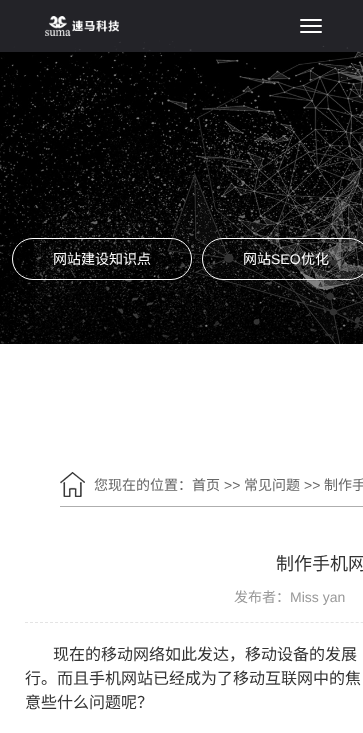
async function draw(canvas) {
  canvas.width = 363;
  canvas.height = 733;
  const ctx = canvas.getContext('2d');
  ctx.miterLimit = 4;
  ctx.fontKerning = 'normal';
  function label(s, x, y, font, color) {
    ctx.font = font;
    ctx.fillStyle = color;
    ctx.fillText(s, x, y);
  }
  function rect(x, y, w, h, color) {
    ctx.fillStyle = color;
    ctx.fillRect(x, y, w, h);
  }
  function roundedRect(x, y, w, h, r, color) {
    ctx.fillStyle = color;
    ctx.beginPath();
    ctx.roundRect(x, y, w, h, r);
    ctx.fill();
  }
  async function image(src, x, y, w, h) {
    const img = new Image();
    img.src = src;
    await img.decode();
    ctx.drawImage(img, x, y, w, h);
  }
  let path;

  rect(0, 0, 363, 733, '#fff');
  await image('assets/img1.png', 0, 0, 363, 344);
  rect(0, 0, 363, 52, '#2c2c32cc');
  await image('assets/img2.png', 45, 16, 74, 20);
  roundedRect(300, 19, 22, 2, 1, '#fff');
  roundedRect(300, 25, 22, 2, 1, '#fff');
  roundedRect(300, 31, 22, 2, 1, '#fff');
  ctx.beginPath();
  ctx.roundRect(12.5, 238.5, 179, 41, 20.5);
  ctx.strokeStyle = '#fff';
  ctx.stroke();
  label('网站建设知识点', 53, 264, '14px Noto Sans CJK SC', '#fff');
  ctx.beginPath();
  ctx.roundRect(202.5, 238.5, 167, 41, 20.5);
  ctx.stroke();
  label('网站', 243, 264, '14px Noto Sans CJK SC', '#fff');
  label('SEO', 271, 264, '14px Liberation Sans', '#fff');
  label('优化', 301, 264, '14px Noto Sans CJK SC', '#fff');
  rect(60, 506, 303, 1, '#aeaeae');
  await image('assets/img3.png', 60, 472, 25, 25);
  label('您现在的位置：首页', 94, 490, '14px Noto Sans CJK SC', '#666');
  label('>>', 224, 490, '14px Liberation Sans', '#666');
  label('常见问题', 244, 490, '14px Noto Sans CJK SC', '#666');
  label('>>', 304, 490, '14px Liberation Sans', '#666');
  label('制作手', 324, 490, '14px Noto Sans CJK SC', '#666');
  path = new Path2D('M25 622.5H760');
  ctx.strokeStyle = '#e4e4e4';
  ctx.setLineDash([3, 2.01]);
  ctx.stroke(path);
  label('制作手机网', 276, 570, '18px Noto Sans CJK SC', '#333');
  label('发布者：', 234, 602, '14px Noto Sans CJK SC', '#999');
  label('Miss yan', 290, 602, '14px Liberation Sans', '#999');
  label('现在的移动网络如此发达，移动设备的发展', 53, 660, '16px Noto Sans CJK SC', '#333');
  label('行。而且手机网站已经成为了移动互联网中的焦', 25, 684, '16px Noto Sans CJK SC', '#333');
  label('意些什么问题呢？', 25, 708, '16px Noto Sans CJK SC', '#333');
}

draw(document.querySelector('canvas'));
